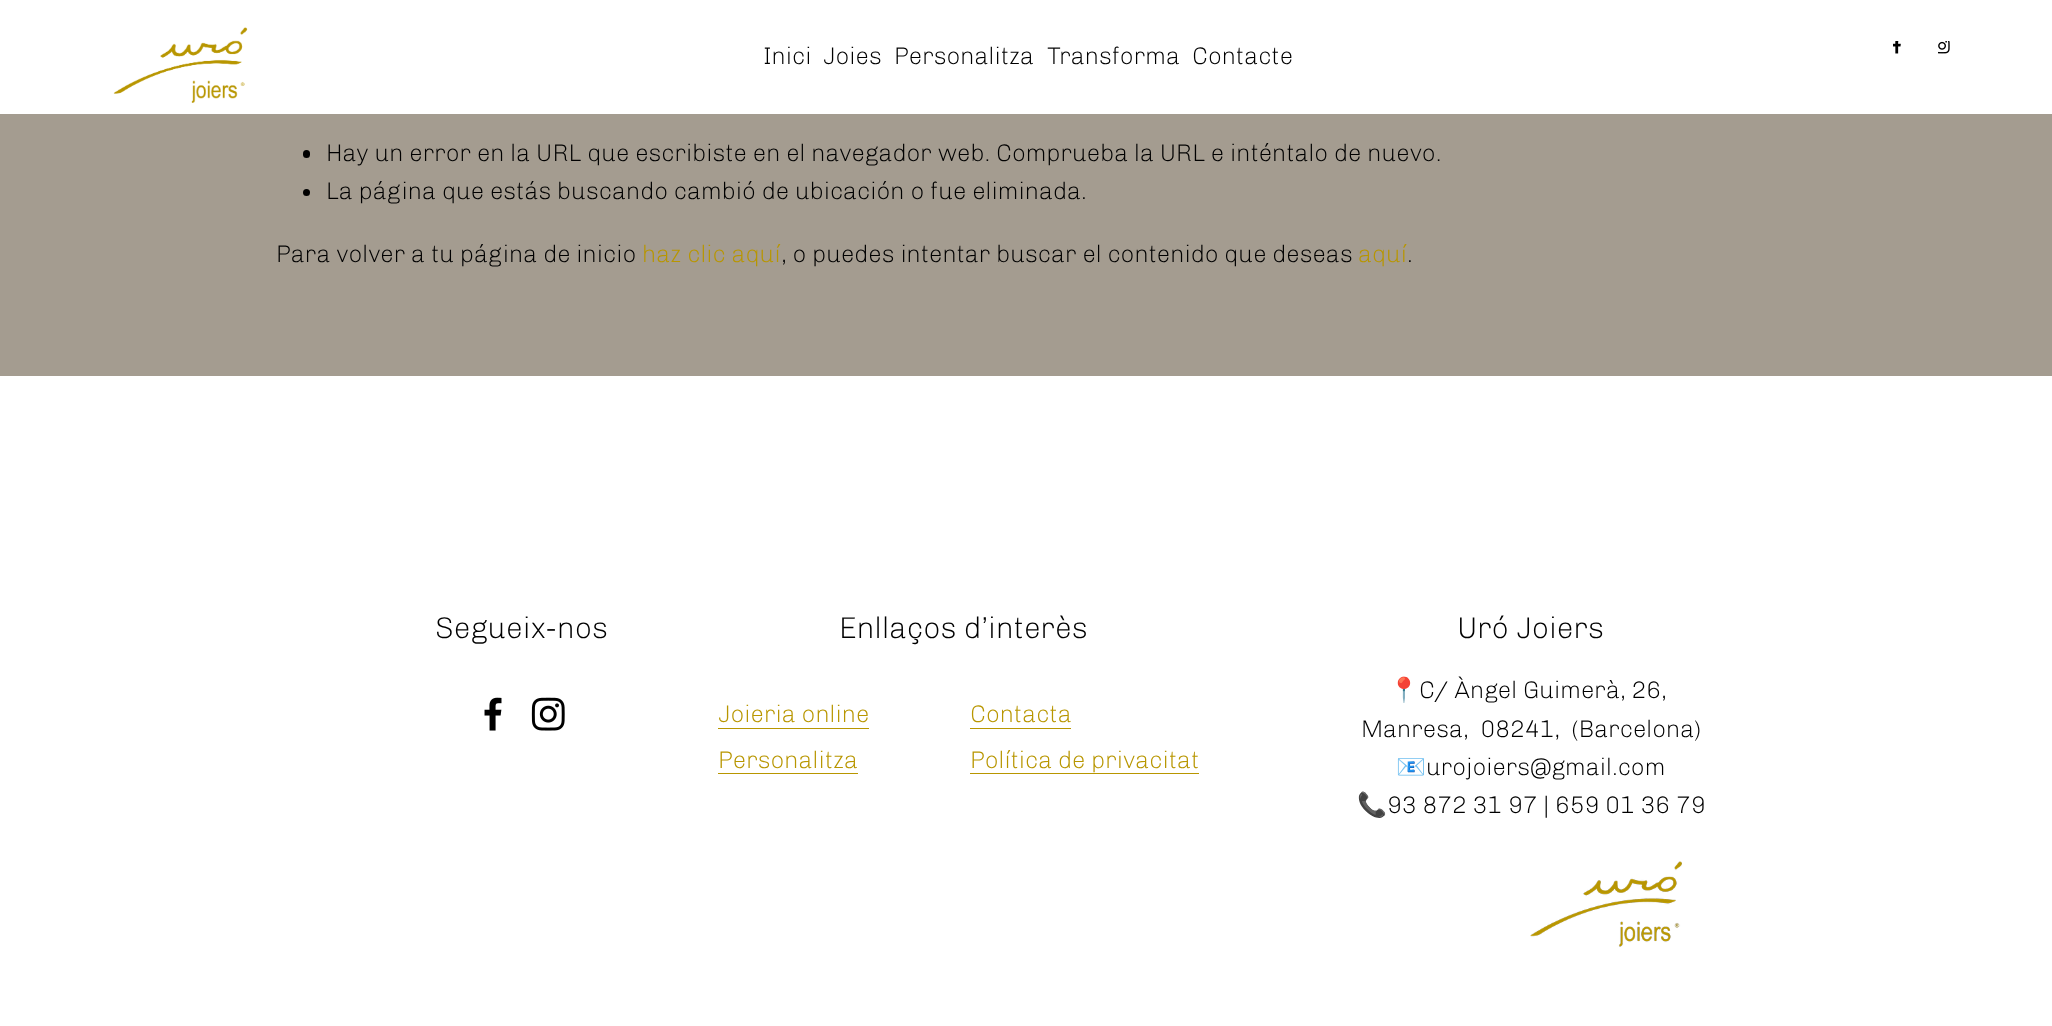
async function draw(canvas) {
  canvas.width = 2052;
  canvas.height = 1026;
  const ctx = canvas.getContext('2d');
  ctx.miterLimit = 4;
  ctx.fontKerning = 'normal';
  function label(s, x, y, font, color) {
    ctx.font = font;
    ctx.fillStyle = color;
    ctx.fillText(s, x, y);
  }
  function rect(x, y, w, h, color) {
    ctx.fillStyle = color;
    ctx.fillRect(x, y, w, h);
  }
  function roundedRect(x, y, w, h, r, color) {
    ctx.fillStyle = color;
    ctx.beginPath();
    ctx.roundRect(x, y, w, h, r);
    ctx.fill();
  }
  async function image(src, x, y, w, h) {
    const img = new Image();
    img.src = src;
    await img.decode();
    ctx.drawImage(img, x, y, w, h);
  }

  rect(0, 0, 2052, 1026, '#a49c90');
  rect(0, 0, 2052, 114, '#fff');
  await image('assets/img1.png', 113, 27, 135, 76);
  label('Inici', 763, 64, '100 24px Chivo', '#000');
  label('Joies', 823, 64, '100 24px Chivo', '#000');
  label('Personalitza', 894, 64, '100 24px Chivo', '#000');
  label('Transforma', 1047, 64, '100 24px Chivo', '#000');
  label('Contacte', 1192, 64, '100 24px Chivo', '#000');
  await image('assets/img2.png', 1893, 41, 8, 13);
  await image('assets/img3.png', 1938, 41, 12, 13);
  roundedRect(303, 150, 7, 8, 3.5, '#000');
  label('Hay un error en la URL que escribiste en el navegador web. Comprueba la URL e inténtalo de nuevo.', 326, 161, '100 24px Chivo', '#000');
  ctx.beginPath();
  ctx.arc(306.5, 192.5, 3.5, 0, 2 * Math.PI);
  ctx.fill();
  label('La página que estás buscando cambió de ubicación o fue eliminada.', 326, 199, '100 24px Chivo', '#000');
  label('Para volver a tu página de inicio', 276, 262, '100 24px Chivo', '#000');
  label('haz clic aquí', 642, 262, '100 24px Chivo', '#b89600');
  label(', o puedes intentar buscar el contenido que deseas', 781, 262, '100 24px Chivo', '#000');
  label('aquí', 1358, 262, '100 24px Chivo', '#b89600');
  label('.', 1407, 262, '100 24px Chivo', '#000');
  rect(0, 376, 2052, 650, '#fff');
  label('Segueix-nos', 435, 638, '100 30px Chivo', '#000');
  label('Enllaços d’interès', 839, 638, '100 30px Chivo', '#000');
  label('Uró Joiers', 1457, 638, '100 30px Chivo', '#000');
  label('📍', 1389, 698, '24px Noto Color Emoji', '#000');
  label('C/ Àngel Guimerà, 26,', 1419, 698, '100 24px Chivo', '#000');
  label('Manresa,  08241,  (Barcelona)', 1361, 737, '100 24px Chivo', '#000');
  label('📧', 1396, 775, '24px Noto Color Emoji', '#000');
  label('urojoiers@gmail.com', 1426, 775, '100 24px Chivo', '#000');
  label('📞', 1357, 813, '24px Noto Color Emoji', '#000');
  label('93 872 31 97 | 659 01 36 79', 1387, 813, '100 24px Chivo', '#000');
  await image('assets/img4.png', 484, 697, 18, 34);
  await image('assets/img5.png', 531, 697, 34, 34);
  label('Joieria online', 718, 722, '100 24px Chivo', '#b89600');
  rect(718, 728, 151, 1, '#b89600');
  label('Contacta', 970, 722, '100 24px Chivo', '#b89600');
  rect(970, 728, 101, 1, '#b89600');
  label('Personalitza', 718, 768, '100 24px Chivo', '#b89600');
  rect(718, 773, 140, 1, '#b89600');
  label('Política de privacitat', 970, 768, '100 24px Chivo', '#b89600');
  rect(970, 773, 229, 1, '#b89600');
  await image('assets/img6.png', 1530, 861, 152, 86);
}

draw(document.querySelector('canvas'));
